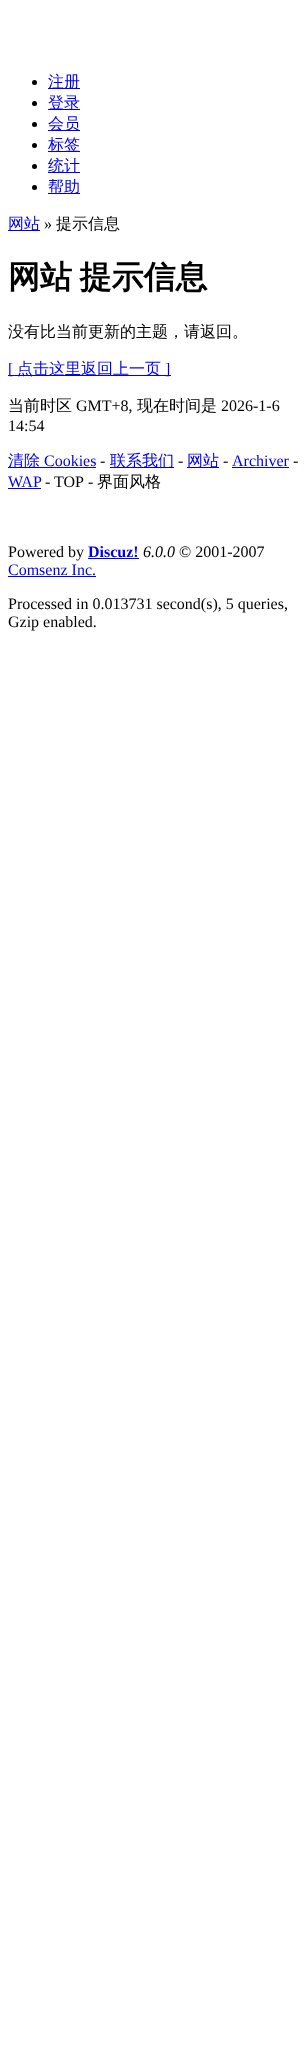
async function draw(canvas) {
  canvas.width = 308;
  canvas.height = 2059;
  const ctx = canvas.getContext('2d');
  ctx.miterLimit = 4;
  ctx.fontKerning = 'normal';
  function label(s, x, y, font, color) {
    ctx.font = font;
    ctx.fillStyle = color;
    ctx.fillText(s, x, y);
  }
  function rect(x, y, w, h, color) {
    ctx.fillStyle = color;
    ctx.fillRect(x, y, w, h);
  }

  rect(0, 0, 308, 2059, '#fff');
  ctx.fillStyle = '#000';
  ctx.beginPath();
  ctx.arc(34.5, 82.5, 2.5, 0, 2 * Math.PI);
  ctx.fill();
  rect(48, 88, 32, 1, '#00e');
  label('注册', 48, 87, '500 16px WenQuanYi Zen Hei', '#00e');
  ctx.fillStyle = '#000';
  ctx.beginPath();
  ctx.arc(34.5, 103.5, 2.5, 0, 2 * Math.PI);
  ctx.fill();
  rect(48, 109, 32, 1, '#00e');
  label('登录', 48, 108, '500 16px WenQuanYi Zen Hei', '#00e');
  ctx.fillStyle = '#000';
  ctx.beginPath();
  ctx.arc(34.5, 124.5, 2.5, 0, 2 * Math.PI);
  ctx.fill();
  rect(48, 130, 32, 1, '#00e');
  label('会员', 48, 129, '500 16px WenQuanYi Zen Hei', '#00e');
  ctx.fillStyle = '#000';
  ctx.beginPath();
  ctx.arc(34.5, 145.5, 2.5, 0, 2 * Math.PI);
  ctx.fill();
  rect(48, 151, 32, 1, '#00e');
  label('标签', 48, 150, '500 16px WenQuanYi Zen Hei', '#00e');
  ctx.fillStyle = '#000';
  ctx.beginPath();
  ctx.arc(34.5, 166.5, 2.5, 0, 2 * Math.PI);
  ctx.fill();
  rect(48, 172, 32, 1, '#00e');
  label('统计', 48, 171, '500 16px WenQuanYi Zen Hei', '#00e');
  ctx.fillStyle = '#000';
  ctx.beginPath();
  ctx.arc(34.5, 187.5, 2.5, 0, 2 * Math.PI);
  ctx.fill();
  rect(48, 193, 32, 1, '#00e');
  label('帮助', 48, 192, '500 16px WenQuanYi Zen Hei', '#00e');
  rect(8, 230, 32, 1, '#00e');
  label('网站', 8, 229, '500 16px WenQuanYi Zen Hei', '#00e');
  label('»', 44, 229, '16px Liberation Serif', '#000');
  label('提示信息', 56, 229, '500 16px WenQuanYi Zen Hei', '#000');
  ctx.wordSpacing = '-2px';
  label('网站 提示信息', 8, 288, 'bold 32px WenQuanYi Zen Hei', '#000');
  ctx.wordSpacing = '0px';
  label('没有比当前更新的主题，请返回。', 8, 337, '500 16px WenQuanYi Zen Hei', '#000');
  rect(8, 375, 163, 1, '#00e');
  label('[', 8, 374, '16px Liberation Serif', '#00e');
  label('点击这里返回上一页', 17, 374, '500 16px WenQuanYi Zen Hei', '#00e');
  label(']', 165, 374, '16px Liberation Serif', '#00e');
  label('当前时区', 8, 411, '500 16px WenQuanYi Zen Hei', '#000');
  label('GMT+8,', 76, 411, '16px Liberation Serif', '#000');
  label('现在时间是', 137, 411, '500 16px WenQuanYi Zen Hei', '#000');
  label('2026-1-6', 221, 411, '16px Liberation Serif', '#000');
  label('14:54', 8, 431, '16px Liberation Serif', '#000');
  rect(8, 467, 88, 1, '#00e');
  label('清除', 8, 466, '500 16px WenQuanYi Zen Hei', '#00e');
  label('Cookies', 44, 466, '16px Liberation Serif', '#00e');
  label('-', 100, 466, '16px Liberation Serif', '#000');
  rect(110, 467, 64, 1, '#00e');
  label('联系我们', 110, 466, '500 16px WenQuanYi Zen Hei', '#00e');
  label('-', 178, 466, '16px Liberation Serif', '#000');
  rect(187, 467, 32, 1, '#00e');
  label('网站', 187, 466, '500 16px WenQuanYi Zen Hei', '#00e');
  label('-', 223, 466, '16px Liberation Serif', '#000');
  label('Archiver', 232, 466, '16px Liberation Serif', '#00e');
  rect(232, 467, 57, 1, '#00e');
  label('-', 293, 466, '16px Liberation Serif', '#000');
  label('WAP', 8, 487, '16px Liberation Serif', '#00e');
  rect(8, 488, 33, 1, '#00e');
  label('- TOP', 45, 487, '16px Liberation Serif', '#000');
  label('-', 88, 487, '16px Liberation Serif', '#000');
  label('界面风格', 97, 487, '500 16px WenQuanYi Zen Hei', '#000');
  label('Powered by', 8, 557, '16px Liberation Serif', '#000');
  label('Discuz!', 88, 557, 'bold 16px Liberation Serif', '#00e');
  rect(88, 558, 51, 1, '#00e');
  label('6.0.0', 143, 557, 'italic 16px Liberation Serif', '#000');
  label('© 2001-2007', 179, 557, '16px Liberation Serif', '#000');
  label('Comsenz Inc.', 8, 575, '16px Liberation Serif', '#00e');
  rect(8, 576, 88, 1, '#00e');
  label('Processed in 0.013731 second(s), 5 queries,', 8, 609, '16px Liberation Serif', '#000');
  label('Gzip enabled.', 8, 627, '16px Liberation Serif', '#000');
}

draw(document.querySelector('canvas'));
